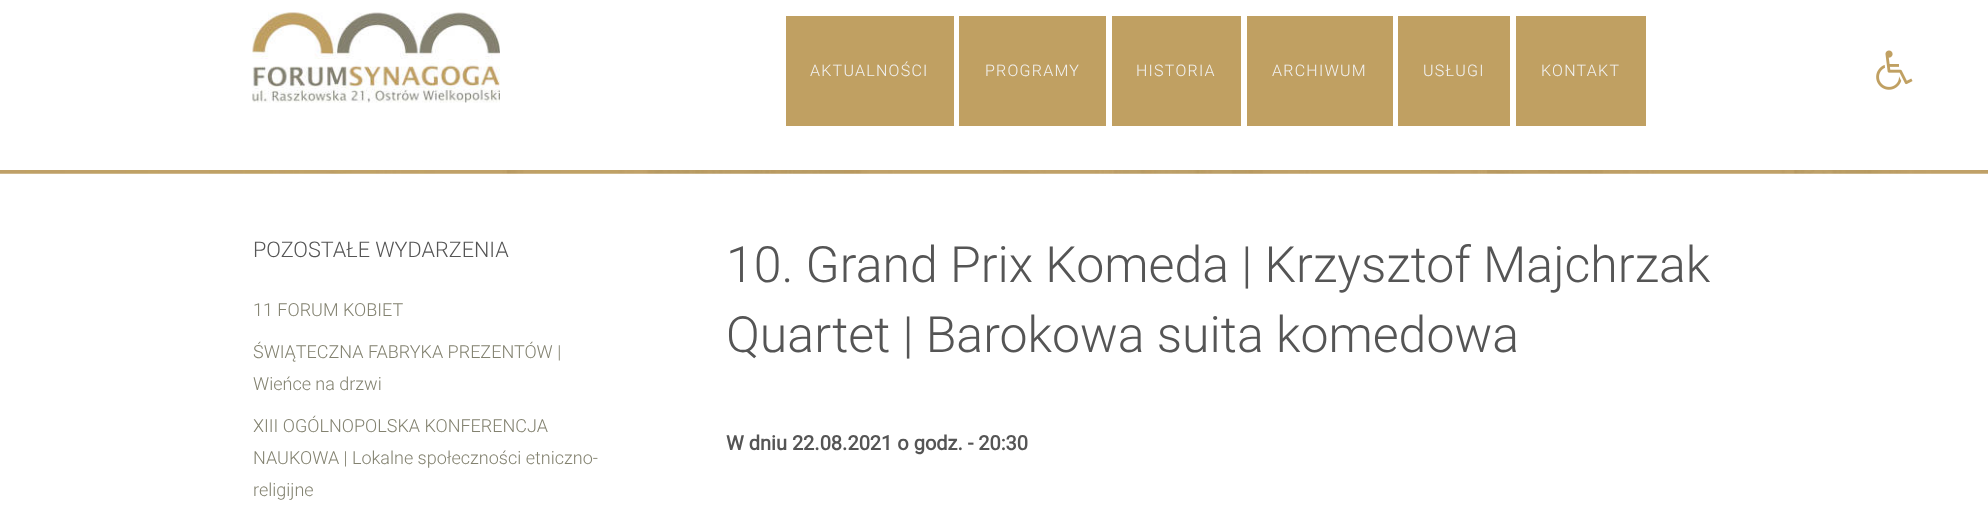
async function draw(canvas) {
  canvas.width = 1988;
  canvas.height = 532;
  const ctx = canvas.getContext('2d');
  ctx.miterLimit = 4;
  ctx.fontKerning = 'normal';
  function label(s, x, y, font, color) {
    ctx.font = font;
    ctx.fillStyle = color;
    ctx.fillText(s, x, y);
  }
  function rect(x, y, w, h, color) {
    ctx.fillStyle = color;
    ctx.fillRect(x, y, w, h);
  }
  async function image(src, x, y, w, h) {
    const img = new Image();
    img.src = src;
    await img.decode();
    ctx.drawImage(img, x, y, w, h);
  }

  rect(0, 0, 1988, 532, '#fff');
  await image('assets/img1.png', 252, 12, 248, 91);
  rect(786, 16, 168, 110, '#c0a062');
  ctx.letterSpacing = '1.25px';
  label('AKTUALNOŚCI', 810, 76, '300 16px Roboto', '#f2f2f2');
  rect(959, 16, 147, 110, '#c0a062');
  label('PROGRAMY', 985, 76, '300 16px Roboto', '#f2f2f2');
  rect(1112, 16, 129, 110, '#c0a062');
  label('HISTORIA', 1136, 76, '300 16px Roboto', '#f2f2f2');
  rect(1247, 16, 146, 110, '#c0a062');
  label('ARCHIWUM', 1272, 76, '300 16px Roboto', '#f2f2f2');
  rect(1398, 16, 112, 110, '#c0a062');
  label('USŁUGI', 1423, 76, '300 16px Roboto', '#f2f2f2');
  rect(1516, 16, 130, 110, '#c0a062');
  label('KONTAKT', 1541, 76, '300 16px Roboto', '#f2f2f2');
  await image('assets/img2.png', 0, 170, 1988, 4);
  ctx.letterSpacing = '0px';
  label('POZOSTAŁE WYDARZENIA', 253, 257, '300 21.6px Roboto', '#555');
  label('11 FORUM KOBIET', 253, 316, '300 18px Roboto', '#838270');
  label('ŚWIĄTECZNA FABRYKA PREZENTÓW |', 253, 358, '300 18px Roboto', '#838270');
  label('Wieńce na drzwi', 253, 390, '300 18px Roboto', '#838270');
  label('XIII OGÓLNOPOLSKA KONFERENCJA', 253, 432, '300 18px Roboto', '#838270');
  label('NAUKOWA | Lokalne społeczności etniczno-', 253, 464, '300 18px Roboto', '#838270');
  label('religijne', 253, 496, '300 18px Roboto', '#838270');
  label('10. Grand Prix Komeda | Krzysztof Majchrzak', 726, 282, '300 50px Roboto', '#555');
  label('Quartet | Barokowa suita komedowa', 726, 352, '300 50px Roboto', '#555');
  label('W dniu 22.08.2021 o godz. - 20:30', 726, 450, 'bold 20px Roboto', '#555');
  await image('assets/img3.png', 1876, 50, 37, 40);
}

draw(document.querySelector('canvas'));
